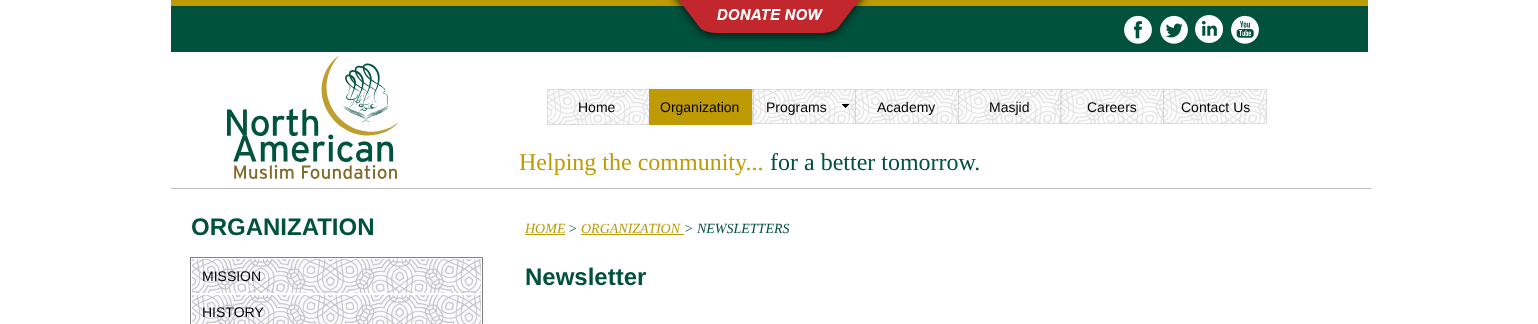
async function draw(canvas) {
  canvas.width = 1538;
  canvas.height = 324;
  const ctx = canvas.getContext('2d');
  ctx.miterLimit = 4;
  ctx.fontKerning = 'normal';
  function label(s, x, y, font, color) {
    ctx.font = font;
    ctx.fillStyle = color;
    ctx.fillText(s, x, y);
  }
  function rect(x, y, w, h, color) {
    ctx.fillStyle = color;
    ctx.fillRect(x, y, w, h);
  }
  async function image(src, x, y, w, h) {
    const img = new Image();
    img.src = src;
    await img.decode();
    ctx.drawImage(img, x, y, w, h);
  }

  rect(0, 0, 1538, 324, '#fff');
  rect(171, 0, 1197, 6, '#be9b04');
  rect(171, 6, 1197, 46, '#00523d');
  await image('assets/img1.png', 669, 0, 200, 41);
  await image('assets/img2.png', 1124, 15, 28, 29);
  await image('assets/img3.png', 1160, 15, 28, 29);
  await image('assets/img4.png', 1195, 15, 28, 28);
  await image('assets/img5.png', 1231, 15, 28, 29);
  await image('assets/img6.png', 227, 56, 171, 123);
  await image('assets/img7.png', 547, 89, 102, 36);
  ctx.strokeStyle = '#c8c8c880';
  ctx.strokeRect(547.5, 89.5, 103, 35);
  await image('assets/img9.png', 752, 89, 104, 35);
  ctx.strokeRect(752.5, 89.5, 103, 34);
  await image('assets/img8.png', 752, 89, 2, 36);
  ctx.strokeRect(650.5, 89.5, 103, 35);
  rect(649, 89, 103, 36, '#be9b04');
  await image('assets/img10.png', 855, 89, 104, 35);
  ctx.strokeRect(855.5, 89.5, 103, 34);
  await image('assets/img10.png', 958, 89, 104, 35);
  ctx.strokeRect(958.5, 89.5, 103, 34);
  await image('assets/img11.png', 1060, 89, 104, 35);
  ctx.strokeRect(1060.5, 89.5, 103, 34);
  await image('assets/img10.png', 1163, 89, 104, 35);
  ctx.strokeRect(1163.5, 89.5, 103, 34);
  label('Home', 578, 112, '14px Liberation Sans', '#000');
  label('Organization', 660, 112, '14px Liberation Sans', '#000');
  label('Programs', 766, 112, '14px Liberation Sans', '#000');
  await image('assets/img12.png', 842, 104, 7, 4);
  label('Academy', 877, 112, '14px Liberation Sans', '#000');
  label('Masjid', 989, 112, '14px Liberation Sans', '#000');
  label('Careers', 1087, 112, '14px Liberation Sans', '#000');
  label('Contact Us', 1181, 112, '14px Liberation Sans', '#000');
  label('Helping the community...', 519, 170, '24px Liberation Serif', '#be9b04');
  label('for a better tomorrow.', 770, 170, '24px Liberation Serif', '#00523d');
  rect(171, 188, 1200, 1, '#bfbfbf');
  label('ORGANIZATION', 191, 235, 'bold 24px Liberation Sans', '#00523d');
  label('HOME', 525, 233, 'italic 14px Liberation Serif', '#be9b04');
  rect(525, 234, 40, 1, '#be9b04');
  label('>', 568, 233, 'italic 14px Liberation Serif', '#00523d');
  label('ORGANIZATION', 581, 233, 'italic 14px Liberation Serif', '#be9b04');
  rect(581, 234, 103, 1, '#be9b04');
  label('> NEWSLETTERS', 684, 233, 'italic 14px Liberation Serif', '#00523d');
  ctx.strokeStyle = '#7f7f7f';
  ctx.strokeRect(190.5, 257.5, 292, 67);
  await image('assets/img13.png', 192, 259, 289, 34);
  label('MISSION', 202, 281, '14px Liberation Sans', '#000');
  await image('assets/img14.png', 192, 295, 289, 29);
  label('HISTORY', 202, 317, '14px Liberation Sans', '#000');
  label('Newsletter', 525, 285, 'bold 24px Liberation Sans', '#00523d');
}

draw(document.querySelector('canvas'));
